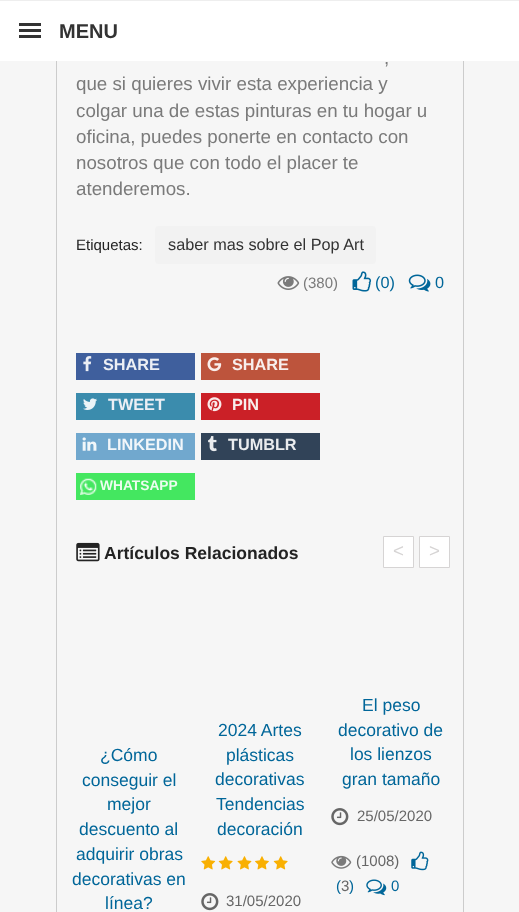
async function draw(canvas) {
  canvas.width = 519;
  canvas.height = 912;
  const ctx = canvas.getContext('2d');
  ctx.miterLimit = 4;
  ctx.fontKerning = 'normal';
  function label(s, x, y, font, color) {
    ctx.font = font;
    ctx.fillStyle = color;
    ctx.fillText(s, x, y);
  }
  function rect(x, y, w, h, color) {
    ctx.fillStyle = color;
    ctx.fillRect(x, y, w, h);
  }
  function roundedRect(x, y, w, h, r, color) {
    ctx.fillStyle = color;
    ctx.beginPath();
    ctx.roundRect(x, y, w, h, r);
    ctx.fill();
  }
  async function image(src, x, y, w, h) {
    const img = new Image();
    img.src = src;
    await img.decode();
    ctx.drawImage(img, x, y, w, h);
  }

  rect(0, 0, 519, 912, '#f6f6f6');
  ctx.strokeStyle = '#ccc';
  ctx.strokeRect(56.5, -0.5, 407, 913);
  rect(0, 1, 519, 60, '#fff');
  rect(0, 0, 519, 1, '#eee');
  rect(19, 23, 22, 3, '#333');
  rect(19, 29, 22, 3, '#333');
  rect(19, 35, 22, 3, '#333');
  label('MENU', 59, 38, 'bold 20px Liberation Sans', '#333');
  label(',', 384, 64, '18.75px Liberation Sans', '#7a7a7a');
  label('que si quieres vivir esta experiencia y', 76, 90, '18.75px Liberation Sans', '#7a7a7a');
  label('colgar una de estas pinturas en tu hogar u', 76, 117, '18.75px Liberation Sans', '#7a7a7a');
  label('oficina, puedes ponerte en contacto con', 76, 143, '18.75px Liberation Sans', '#7a7a7a');
  label('nosotros que con todo el placer te', 76, 169, '18.75px Liberation Sans', '#7a7a7a');
  label('atenderemos.', 76, 195, '18.75px Liberation Sans', '#7a7a7a');
  label('Etiquetas:', 76, 250, '15px Liberation Sans', '#232323');
  roundedRect(155, 226, 221, 38, 4, '#f2f2f2');
  label('saber mas sobre el Pop Art', 168, 250, '16.25px Liberation Sans', '#333');
  await image('assets/img1.png', 277, 276, 23, 14);
  label('(380)', 303, 288, '15px Liberation Sans', '#7a7a7a');
  await image('assets/img2.png', 352, 271, 20, 21);
  label('(0)', 375, 288, '16.25px Liberation Sans', '#069');
  await image('assets/img3.png', 408, 274, 23, 18);
  label('0', 435, 288, '16.25px Liberation Sans', '#069');
  rect(76, 353, 119, 27, '#3f5f9d');
  await image('assets/img4.png', 83, 356, 9, 16);
  label('SHARE', 103, 370, 'bold 16.25px Liberation Sans', '#eceff5');
  rect(201, 353, 119, 27, '#bd543c');
  await image('assets/img5.png', 207, 357, 15, 15);
  label('SHARE', 232, 370, 'bold 16.25px Liberation Sans', '#f8eeec');
  rect(76, 393, 119, 27, '#3b8cad');
  await image('assets/img6.png', 83, 398, 14, 12);
  label('TWEET', 108, 410, 'bold 16.25px Liberation Sans', '#eceff5');
  rect(201, 393, 119, 27, '#cb2027');
  await image('assets/img7.png', 207, 397, 15, 15);
  label('PIN', 232, 410, 'bold 16.25px Liberation Sans', '#f8eeec');
  rect(76, 433, 119, 27, '#71a8ce');
  await image('assets/img8.png', 82, 437, 15, 14);
  label('LINKEDIN', 107, 450, 'bold 16.25px Liberation Sans', '#f1f6fa');
  rect(201, 433, 119, 27, '#314358');
  await image('assets/img9.png', 208, 436, 9, 16);
  label('TUMBLR', 228, 450, 'bold 16.25px Liberation Sans', '#eaecee');
  rect(76, 473, 119, 27, '#44e760');
  await image('assets/img10.png', 80, 478, 17, 17);
  label('WHATSAPP', 100, 490, 'bold 13.75px Liberation Sans', '#ecfdef');
  ctx.fillStyle = '#fff';
  ctx.beginPath();
  ctx.rect(383.5, 536.5, 30, 31);
  ctx.fill();
  ctx.strokeStyle = '#d6d4d4';
  ctx.stroke();
  label('<', 393, 557, '18.75px Liberation Sans', '#d6d4d4');
  ctx.fillStyle = '#fff';
  ctx.beginPath();
  ctx.rect(419.5, 536.5, 30, 31);
  ctx.fill();
  ctx.stroke();
  label('>', 429, 557, '18.75px Liberation Sans', '#d6d4d4');
  label('¿Cómo', 100, 761, '17.5px Liberation Sans', '#069');
  label('conseguir el', 82, 786, '17.5px Liberation Sans', '#069');
  label('mejor', 107, 810, '17.5px Liberation Sans', '#069');
  label('descuento al', 79, 835, '17.5px Liberation Sans', '#069');
  label('adquirir obras', 76, 860, '17.5px Liberation Sans', '#069');
  label('decorativas en', 72, 885, '17.5px Liberation Sans', '#069');
  label('línea?', 105, 909, '17.5px Liberation Sans', '#069');
  label('2024 Artes', 218, 736, '17.5px Liberation Sans', '#069');
  label('plásticas', 226, 761, '17.5px Liberation Sans', '#069');
  label('decorativas', 215, 785, '17.5px Liberation Sans', '#069');
  label('Tendencias', 216, 810, '17.5px Liberation Sans', '#069');
  label('decoración', 217, 835, '17.5px Liberation Sans', '#069');
  await image('assets/img11.png', 201, 856, 15, 14);
  await image('assets/img12.png', 218, 856, 15, 14);
  await image('assets/img13.png', 237, 856, 15, 14);
  await image('assets/img14.png', 255, 856, 14, 14);
  await image('assets/img12.png', 273, 856, 15, 14);
  await image('assets/img15.png', 201, 893, 18, 18);
  label('31/05/2020', 226, 906, '15px Liberation Sans', '#666');
  label('El peso', 362, 711, '17.5px Liberation Sans', '#069');
  label('decorativo de', 338, 736, '17.5px Liberation Sans', '#069');
  label('los lienzos', 350, 760, '17.5px Liberation Sans', '#069');
  label('gran tamaño', 342, 785, '17.5px Liberation Sans', '#069');
  await image('assets/img15.png', 331, 808, 18, 18);
  label('25/05/2020', 357, 821, '15px Liberation Sans', '#666');
  await image('assets/img16.png', 331, 855, 21, 14);
  label('(1008)', 356, 866, '15px Liberation Sans', '#666');
  await image('assets/img17.png', 411, 851, 18, 20);
  label('(', 336, 891, '15px Liberation Sans', '#069');
  label('3', 341, 891, '15px Liberation Sans', '#666');
  label(')', 349, 891, '15px Liberation Sans', '#069');
  await image('assets/img18.png', 366, 879, 21, 17);
  label('0', 391, 891, '15px Liberation Sans', '#069');
  await image('assets/img19.png', 76, 542, 24, 20);
  label('Artículos Relacionados', 104, 559, 'bold 17.5px Liberation Sans', '#232323');
}

draw(document.querySelector('canvas'));
